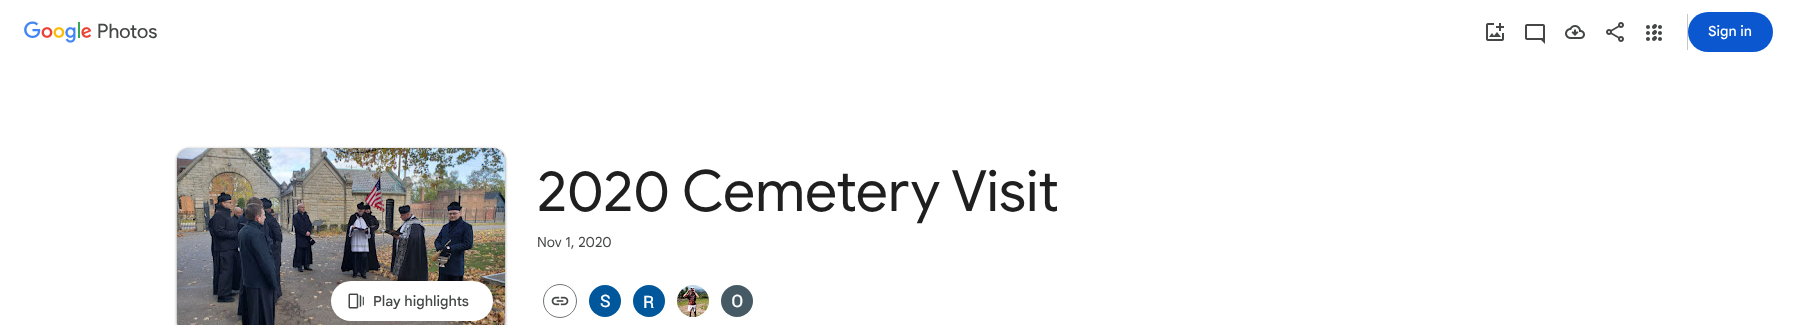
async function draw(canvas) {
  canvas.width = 1809;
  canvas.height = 325;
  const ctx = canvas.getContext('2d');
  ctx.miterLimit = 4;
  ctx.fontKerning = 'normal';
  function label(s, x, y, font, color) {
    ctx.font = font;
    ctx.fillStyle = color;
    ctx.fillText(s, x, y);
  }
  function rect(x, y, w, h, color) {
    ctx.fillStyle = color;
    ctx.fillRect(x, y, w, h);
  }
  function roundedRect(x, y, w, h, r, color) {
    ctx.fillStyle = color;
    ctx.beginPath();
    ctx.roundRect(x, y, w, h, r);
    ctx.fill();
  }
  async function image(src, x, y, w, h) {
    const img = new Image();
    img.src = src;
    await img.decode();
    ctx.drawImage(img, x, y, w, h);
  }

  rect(0, 0, 1809, 325, '#fff');
  await image('assets/img1.png', 24, 21, 68, 22);
  label('Photos', 97, 38, '20px Product Sans', '#444746');
  await image('assets/img2.png', 1486, 23, 18, 18);
  await image('assets/img3.png', 1525, 24, 20, 20);
  await image('assets/img4.png', 1565, 25, 20, 14);
  await image('assets/img5.png', 1606, 22, 18, 20);
  await image('assets/img6.png', 1653, 24, 4, 16);
  rect(1687, 14, 1, 36, '#c4c7c5');
  label('2020 Cemetery Visit', 537, 211, '57px Google Sans', '#1f1f1f');
  label('Nov 1, 2020', 537, 247, '14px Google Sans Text', '#444746');
  ctx.beginPath();
  ctx.arc(560, 301, 16.5, 0, 2 * Math.PI);
  ctx.strokeStyle = '#747775';
  ctx.stroke();
  await image('assets/img7.png', 551, 296, 18, 10);
  await image('assets/img8.png', 589, 285, 32, 32);
  await image('assets/img9.png', 633, 285, 32, 32);
  await image('assets/img10.png', 677, 285, 32, 32);
  await image('assets/img11.png', 721, 285, 32, 32);
  ctx.fillStyle = '#00000026';
  ctx.filter = 'blur(1.5px)';
  ctx.beginPath();
  ctx.roundRect(176, 148, 330, 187, 13);
  ctx.fill();
  ctx.filter = 'none';
  ctx.fillStyle = '#0000004d';
  ctx.filter = 'blur(1px)';
  ctx.beginPath();
  ctx.roundRect(177, 149, 328, 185, 12);
  ctx.fill();
  ctx.filter = 'none';
  await image('assets/img12.png', 177, 148, 328, 177);
  roundedRect(331, 281, 162, 40, 20, '#fff');
  await image('assets/img13.png', 348, 293, 16, 16);
  label('Play highlights', 373, 306, '500 14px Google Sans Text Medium', '#444746');
  await image('assets/img14.png', 1646, 25, 16, 16);
  roundedRect(1688, 12, 85, 40, 20, '#0b57d0');
  label('Sign in', 1708, 36, '500 14px Google Sans Text Medium', '#fff');
}

draw(document.querySelector('canvas'));
